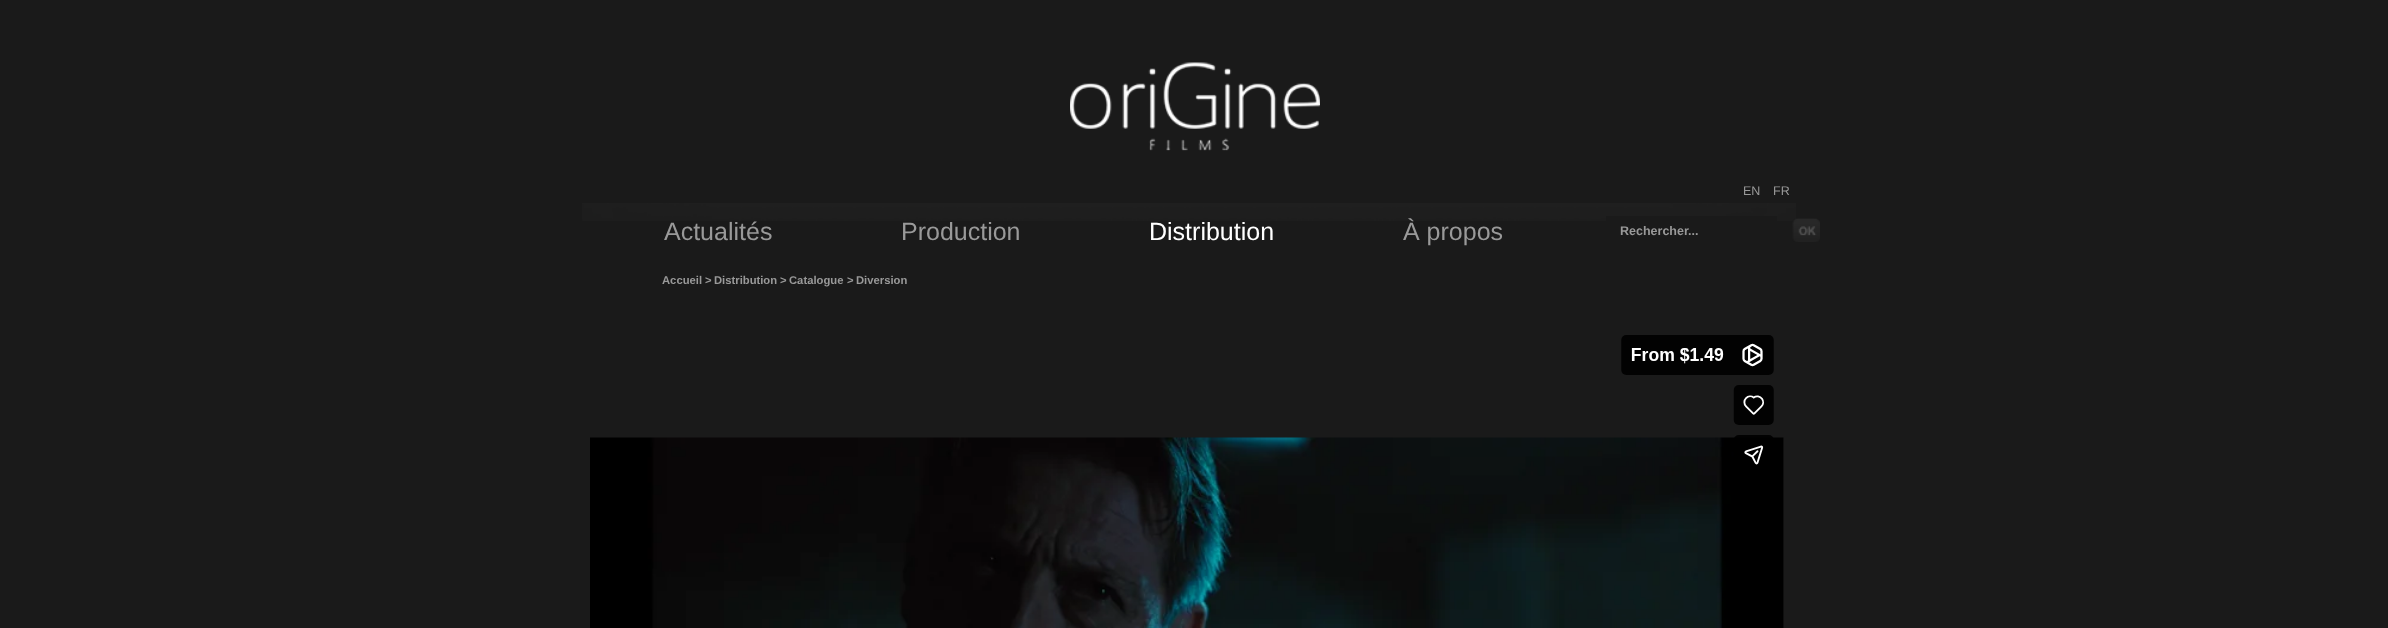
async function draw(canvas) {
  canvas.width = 2388;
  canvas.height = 628;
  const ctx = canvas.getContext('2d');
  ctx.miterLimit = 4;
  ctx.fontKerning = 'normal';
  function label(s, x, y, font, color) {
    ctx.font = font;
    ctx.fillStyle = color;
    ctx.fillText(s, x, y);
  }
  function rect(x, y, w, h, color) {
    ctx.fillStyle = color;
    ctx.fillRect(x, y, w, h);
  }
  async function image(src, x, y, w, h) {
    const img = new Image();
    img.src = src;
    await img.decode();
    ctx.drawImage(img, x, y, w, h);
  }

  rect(0, 0, 2388, 628, '#1a1a1a');
  await image('assets/img1.png', 1070, 62, 250, 89);
  label('EN', 1743, 195, '12.5px Liberation Sans', '#999');
  label('FR', 1773, 195, '12.5px Liberation Sans', '#999');
  await image('assets/img2.png', 582, 203, 1214, 18);
  label('Actualités', 664, 240, '25px Liberation Sans', '#999');
  label('Production', 901, 240, '25px Liberation Sans', '#999');
  label('Distribution', 1149, 240, '25px Liberation Sans', '#fff');
  label('À propos', 1403, 240, '25px Liberation Sans', '#999');
  rect(1606, 216, 171, 5, '#1a1a1a');
  label('Rechercher...', 1620, 235, 'bold 12.5px Liberation Sans', '#999');
  await image('assets/img3.png', 1792, 218, 28, 24);
  label('Accueil', 662, 284, 'bold 11.25px Liberation Sans', '#999');
  label('>', 705, 284, 'bold 11.25px Liberation Sans', '#999');
  label('Distribution', 714, 284, 'bold 11.25px Liberation Sans', '#999');
  label('>', 780, 284, 'bold 11.25px Liberation Sans', '#999');
  label('Catalogue', 789, 284, 'bold 11.25px Liberation Sans', '#999');
  label('>', 847, 284, 'bold 11.25px Liberation Sans', '#999');
  label('Diversion', 856, 284, 'bold 11.25px Liberation Sans', '#999');
  await image('assets/img4.png', 590, 335, 1194, 293);
}

draw(document.querySelector('canvas'));
